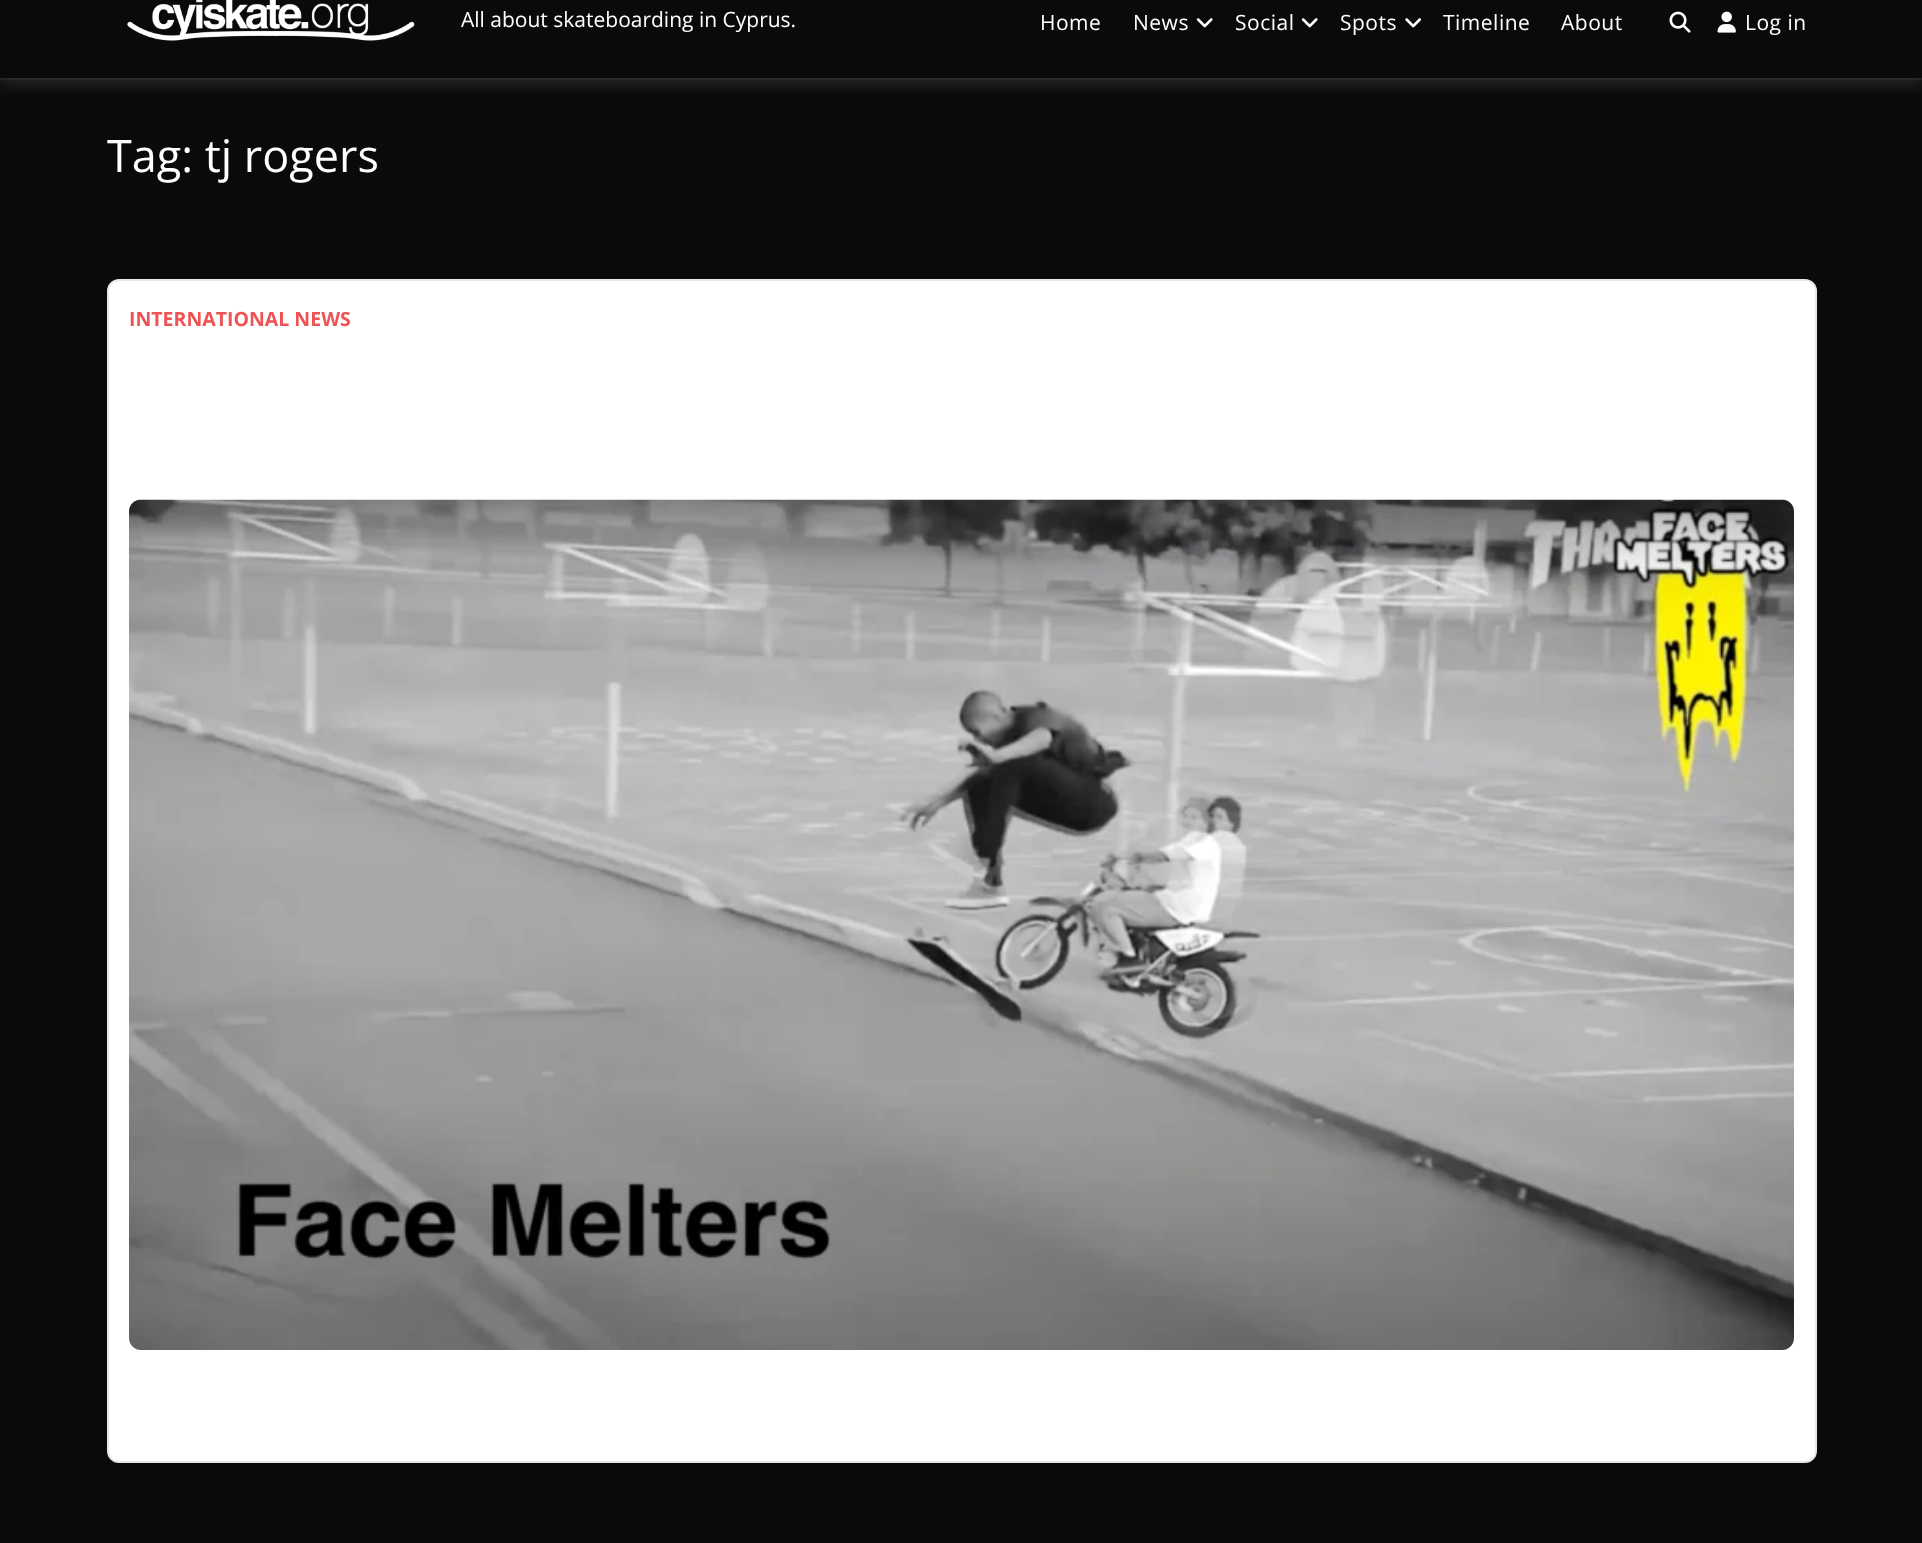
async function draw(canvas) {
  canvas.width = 1922;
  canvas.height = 1543;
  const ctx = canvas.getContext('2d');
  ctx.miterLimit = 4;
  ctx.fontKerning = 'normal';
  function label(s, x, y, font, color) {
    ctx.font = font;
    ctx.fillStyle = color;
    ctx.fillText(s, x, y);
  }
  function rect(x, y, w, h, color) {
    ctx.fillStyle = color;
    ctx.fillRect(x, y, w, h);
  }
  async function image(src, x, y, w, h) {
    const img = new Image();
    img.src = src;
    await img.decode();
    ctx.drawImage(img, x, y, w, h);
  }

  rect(0, 0, 1922, 1543, '#0a0a0a');
  ctx.save();
  ctx.beginPath();
  ctx.rect(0, 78, 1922, 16);
  ctx.clip();
  ctx.fillStyle = '#bdbdbd26';
  ctx.filter = 'blur(7.5px)';
  ctx.beginPath();
  ctx.rect(0, -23, 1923, 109);
  ctx.fill();
  ctx.filter = 'none';
  ctx.restore();
  rect(0, 78, 1922, 2, '#ffffff0d');
  await image('assets/img1.png', 127, 0, 288, 41);
  label('All about skateboarding in Cyprus.', 461, 27, '21px Open Sans', '#fff');
  ctx.letterSpacing = '0.5px';
  label('Home', 1040, 30, '21px Open Sans', '#fff');
  label('News', 1133, 30, '21px Open Sans', '#fff');
  await image('assets/img2.png', 1196, 18, 17, 10);
  label('Social', 1235, 30, '21px Open Sans', '#fff');
  await image('assets/img2.png', 1301, 18, 17, 10);
  label('Spots', 1340, 30, '21px Open Sans', '#fff');
  await image('assets/img3.png', 1405, 18, 16, 10);
  label('Timeline', 1443, 30, '21px Open Sans', '#fff');
  label('About', 1561, 30, '21px Open Sans', '#fff');
  await image('assets/img4.png', 1669, 11, 22, 22);
  await image('assets/img5.png', 1717, 11, 19, 22);
  label('Log in', 1745, 30, '21px Open Sans', '#fff');
  ctx.letterSpacing = '0px';
  label('Tag: tj rogers', 107, 172, '45px Open Sans', '#fff');
  ctx.beginPath();
  ctx.roundRect(108, 280, 1708, 1182, 11);
  ctx.fill();
  ctx.strokeStyle = '#e8e8e8';
  ctx.lineWidth = 2;
  ctx.stroke();
  label('INTERNATIONAL NEWS', 129, 326, 'bold 19.5px Open Sans', '#ef5455');
  await image('assets/img6.png', 129, 499, 1665, 851);
}

draw(document.querySelector('canvas'));
